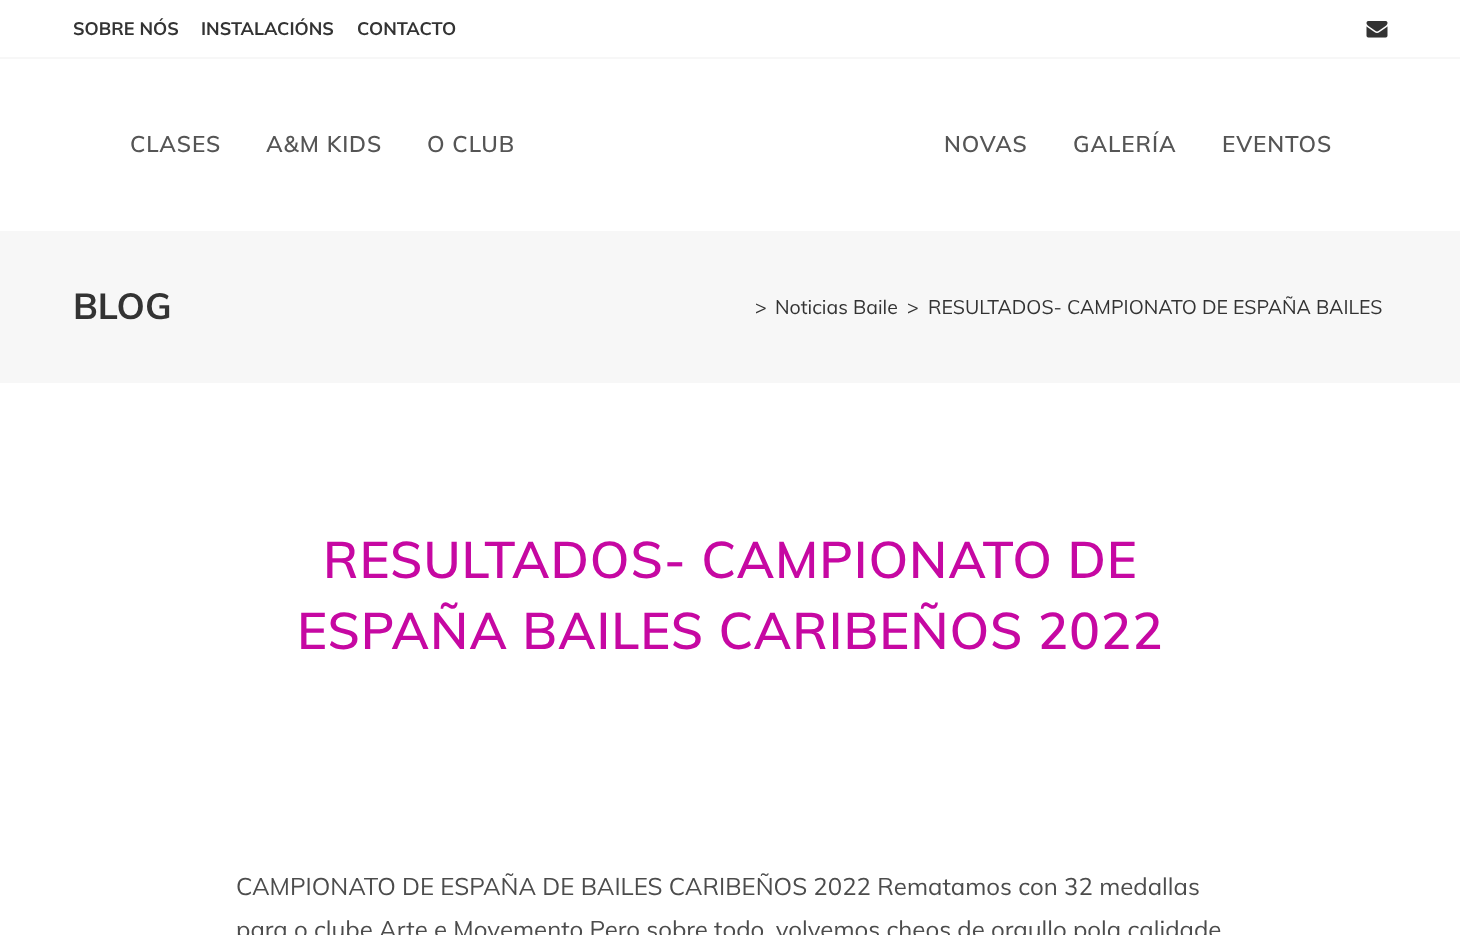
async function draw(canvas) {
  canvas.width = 1460;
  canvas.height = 935;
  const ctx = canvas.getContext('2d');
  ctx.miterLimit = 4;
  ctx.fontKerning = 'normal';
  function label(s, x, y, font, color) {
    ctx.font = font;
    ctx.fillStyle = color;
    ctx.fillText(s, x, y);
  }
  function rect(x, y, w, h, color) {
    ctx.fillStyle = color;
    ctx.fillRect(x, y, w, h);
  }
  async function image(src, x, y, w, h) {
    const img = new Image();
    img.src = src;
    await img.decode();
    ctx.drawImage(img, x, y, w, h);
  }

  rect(0, 0, 1460, 935, '#fff');
  rect(0, 57, 1460, 2, '#f7f7f7');
  label('SOBRE NÓS', 73, 35, 'bold 18px Muli', '#333');
  label('INSTALACIÓNS', 201, 35, 'bold 18px Muli', '#333');
  label('CONTACTO', 357, 35, 'bold 18px Muli', '#333');
  await image('assets/img1.png', 1366, 21, 22, 17);
  ctx.letterSpacing = '0.9px';
  label('CLASES', 130, 152, '600 22.5px Muli', '#555');
  label('A&M KIDS', 266, 152, '600 22.5px Muli', '#555');
  label('O CLUB', 427, 152, '600 22.5px Muli', '#555');
  label('NOVAS', 944, 152, '600 22.5px Muli', '#555');
  label('GALERÍA', 1073, 152, '600 22.5px Muli', '#555');
  label('EVENTOS', 1222, 152, '600 22.5px Muli', '#555');
  rect(0, 231, 1460, 152, '#f7f7f7');
  ctx.letterSpacing = '0px';
  label('BLOG', 73, 319, 'bold 36px Muli', '#333');
  label('>', 755, 314, '19.5px Muli', '#333');
  label('Noticias Baile', 775, 314, '19.5px Muli', '#333');
  label('>', 907, 314, '19.5px Muli', '#333');
  label('RESULTADOS- CAMPIONATO DE ESPAÑA BAILES', 928, 314, '19.5px Muli', '#333');
  ctx.letterSpacing = '0.9px';
  label('RESULTADOS- CAMPIONATO DE', 323, 578, '600 51px Muli', '#c608a2');
  label('ESPAÑA BAILES CARIBEÑOS 2022', 297, 649, '600 51px Muli', '#c608a2');
  ctx.letterSpacing = '0px';
  label('CAMPIONATO DE ESPAÑA DE BAILES CARIBEÑOS 2022 Rematamos con 32 medallas', 236, 895, '24px Muli', '#4c4c4c');
  label('para o clube Arte e Movemento Pero sobre todo, volvemos cheos de orgullo pola calidade', 236, 938, '24px Muli', '#4c4c4c');
}

draw(document.querySelector('canvas'));
